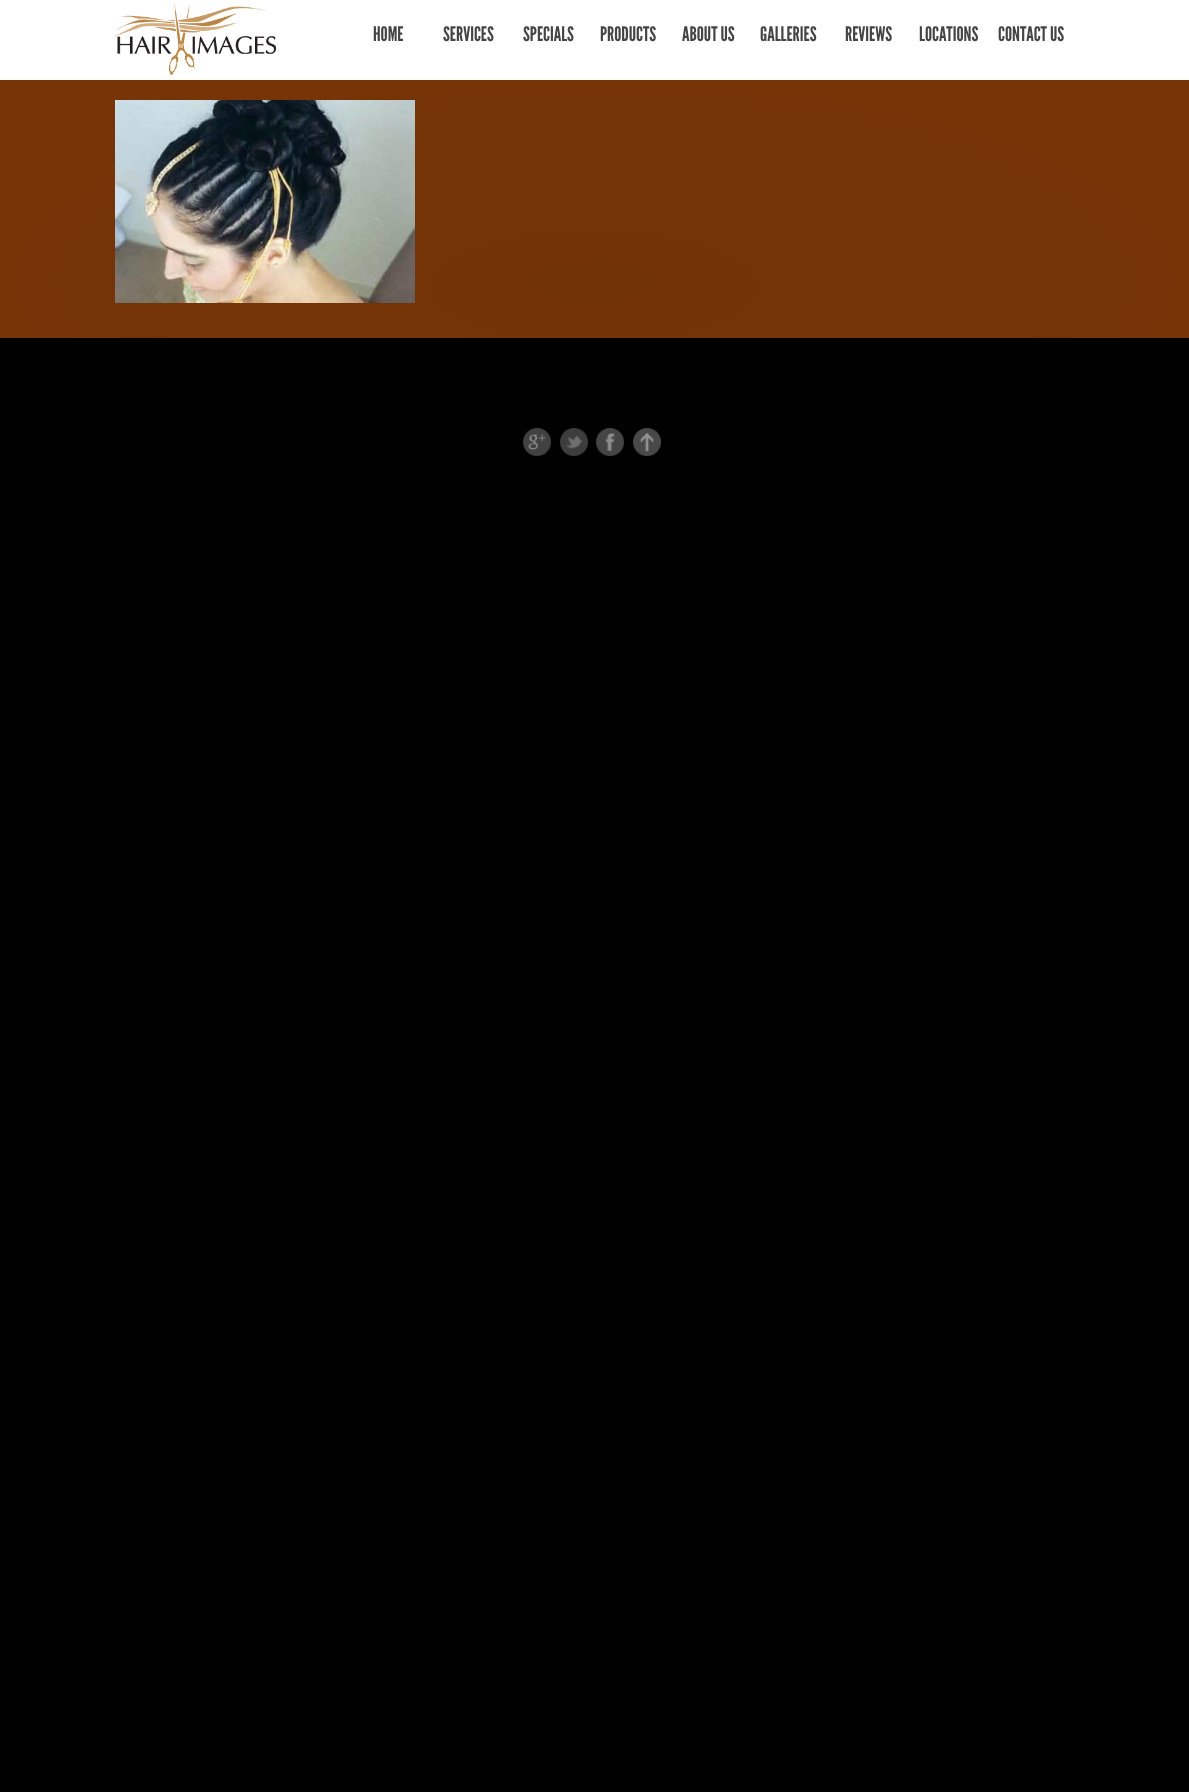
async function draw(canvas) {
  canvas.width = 1189;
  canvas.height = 1792;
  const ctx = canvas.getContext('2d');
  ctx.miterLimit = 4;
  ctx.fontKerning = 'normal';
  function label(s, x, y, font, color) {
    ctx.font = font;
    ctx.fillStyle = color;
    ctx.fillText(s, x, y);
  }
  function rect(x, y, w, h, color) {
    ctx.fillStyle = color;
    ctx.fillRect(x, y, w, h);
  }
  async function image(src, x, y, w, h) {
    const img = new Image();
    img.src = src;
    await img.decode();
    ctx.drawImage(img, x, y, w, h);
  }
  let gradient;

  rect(0, 0, 1189, 1792, '#000');
  rect(0, 0, 1189, 80, '#fff');
  await image('assets/img1.png', 115, 4, 161, 71);
  label('HOME', 373, 41, '20px League Gothic', '#444');
  label('SERVICES', 443, 41, '20px League Gothic', '#444');
  label('SPECIALS', 523, 41, '20px League Gothic', '#444');
  label('PRODUCTS', 600, 41, '20px League Gothic', '#444');
  label('ABOUT US', 682, 41, '20px League Gothic', '#444');
  label('GALLERIES', 760, 41, '20px League Gothic', '#444');
  label('REVIEWS', 845, 41, '20px League Gothic', '#444');
  label('LOCATIONS', 919, 41, '20px League Gothic', '#444');
  label('CONTACT US', 998, 41, '20px League Gothic', '#444');
  gradient = ctx.createRadialGradient(595, 829.28, 0, 595, 829.28, 841);
  gradient.addColorStop(0, '#723307');
  gradient.addColorStop(1, '#773407');
  ctx.fillStyle = gradient;
  ctx.beginPath();
  ctx.rect(0, 80, 1189, 258);
  ctx.save();
  ctx.clip();
  ctx.scale(1, 287 / 841);
  ctx.fillRect(0, 0, 1189, 5252);
  ctx.restore();
  await image('assets/img2.png', 115, 100, 300, 203);
  await image('assets/img3.png', 523, 428, 28, 28);
  await image('assets/img4.png', 560, 428, 28, 28);
  await image('assets/img5.png', 596, 428, 28, 28);
  await image('assets/img6.png', 633, 428, 28, 28);
}

draw(document.querySelector('canvas'));
